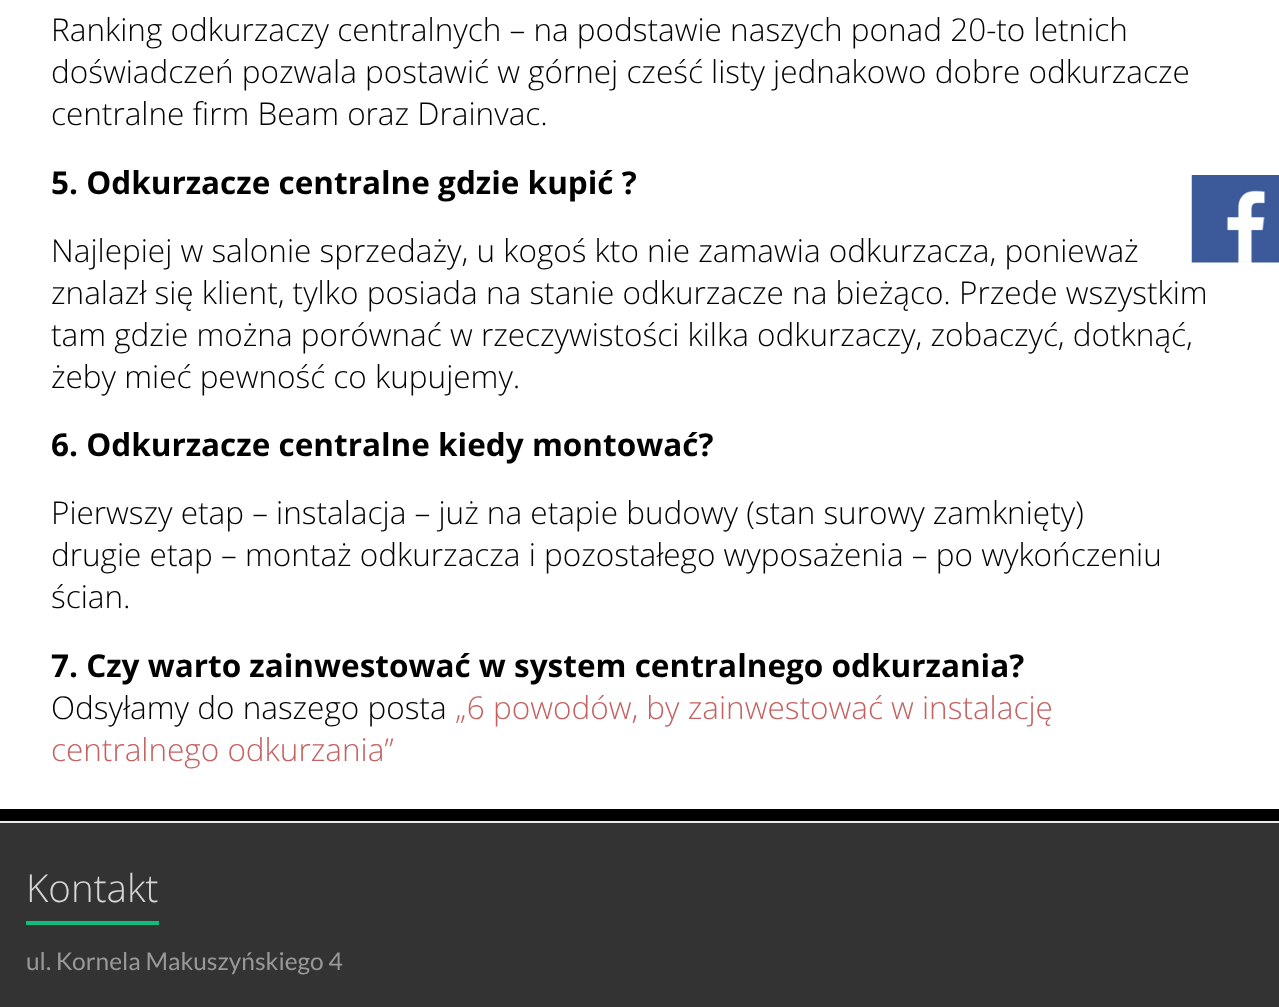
async function draw(canvas) {
  canvas.width = 1279;
  canvas.height = 1007;
  const ctx = canvas.getContext('2d');
  ctx.miterLimit = 4;
  ctx.fontKerning = 'normal';
  function label(s, x, y, font, color) {
    ctx.font = font;
    ctx.fillStyle = color;
    ctx.fillText(s, x, y);
  }
  function rect(x, y, w, h, color) {
    ctx.fillStyle = color;
    ctx.fillRect(x, y, w, h);
  }
  async function image(src, x, y, w, h) {
    const img = new Image();
    img.src = src;
    await img.decode();
    ctx.drawImage(img, x, y, w, h);
  }

  rect(0, 0, 1279, 1007, '#000');
  rect(0, 0, 1279, 809, '#fff');
  label('Ranking odkurzaczy centralnych – na podstawie naszych ponad 20-to letnich', 51, 41, '300 31.5px Open Sans', '#000');
  label('doświadczeń pozwala postawić w górnej cześć listy jednakowo dobre odkurzacze', 51, 83, '300 31.5px Open Sans', '#000');
  label('centralne firm Beam oraz Drainvac.', 51, 125, '300 31.5px Open Sans', '#000');
  label('5. Odkurzacze centralne gdzie kupić ?', 51, 194, 'bold 31.5px Open Sans', '#000');
  label('Najlepiej w salonie sprzedaży, u kogoś kto nie zamawia odkurzacza, ponieważ', 51, 262, '300 31.5px Open Sans', '#000');
  label('znalazł się klient, tylko posiada na stanie odkurzacze na bieżąco. Przede wszystkim', 51, 304, '300 31.5px Open Sans', '#000');
  label('tam gdzie można porównać w rzeczywistości kilka odkurzaczy, zobaczyć, dotknąć,', 51, 346, '300 31.5px Open Sans', '#000');
  label('żeby mieć pewność co kupujemy.', 51, 388, '300 31.5px Open Sans', '#000');
  label('6. Odkurzacze centralne kiedy montować?', 51, 456, 'bold 31.5px Open Sans', '#000');
  label('Pierwszy etap – instalacja – już na etapie budowy (stan surowy zamknięty)', 51, 524, '300 31.5px Open Sans', '#000');
  label('drugie etap – montaż odkurzacza i pozostałego wyposażenia – po wykończeniu', 51, 566, '300 31.5px Open Sans', '#000');
  label('ścian.', 51, 608, '300 31.5px Open Sans', '#000');
  label('7. Czy warto zainwestować w system centralnego odkurzania?', 51, 677, 'bold 31.5px Open Sans', '#000');
  label('Odsyłamy do naszego posta', 51, 719, '300 31.5px Open Sans', '#000');
  label('„6 powodów, by zainwestować w instalację', 455, 719, '300 31.5px Open Sans', '#c56161');
  label('centralnego odkurzania”', 51, 761, '300 31.5px Open Sans', '#c56161');
  await image('assets/img1.png', 1191, 175, 88, 88);
  rect(0, 823, 1279, 184, '#333');
  rect(0, 821, 1279, 2, '#eaeaea');
  label('Kontakt', 26, 902, '300 38.5px Open Sans', '#d5d5d5');
  rect(26, 921, 133, 4, '#0fbe7c');
  label('ul. Kornela Makuszyńskiego 4', 26, 970, '24.5px Lato', '#999');
}

draw(document.querySelector('canvas'));
